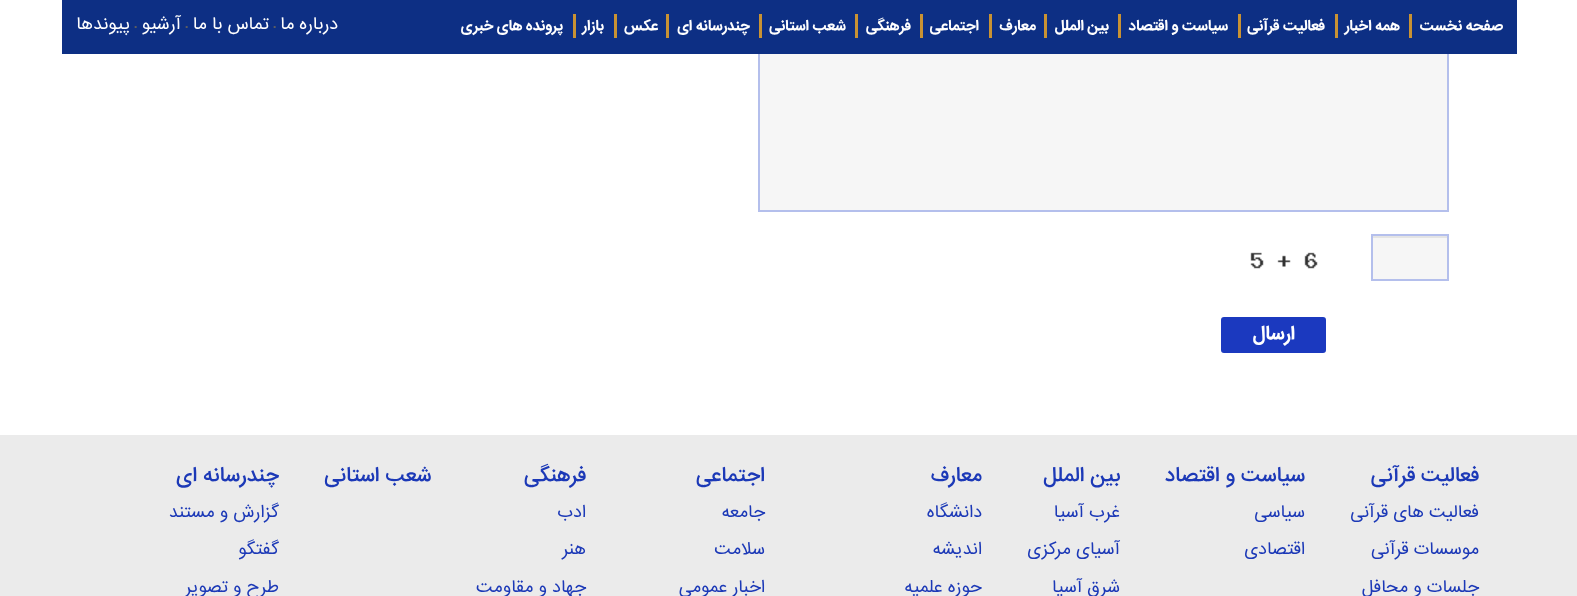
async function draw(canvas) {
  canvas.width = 1577;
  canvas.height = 596;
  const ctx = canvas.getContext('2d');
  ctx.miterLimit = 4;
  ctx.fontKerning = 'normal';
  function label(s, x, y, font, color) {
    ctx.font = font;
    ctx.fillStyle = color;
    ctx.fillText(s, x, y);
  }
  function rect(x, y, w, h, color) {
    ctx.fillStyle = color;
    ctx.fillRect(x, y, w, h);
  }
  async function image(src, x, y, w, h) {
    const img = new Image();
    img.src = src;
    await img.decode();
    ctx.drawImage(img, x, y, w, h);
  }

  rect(0, 0, 1577, 596, '#fff');
  rect(760, 54, 687, 156, '#f6f6f6');
  ctx.strokeStyle = '#b4bfec';
  ctx.lineWidth = 2;
  ctx.strokeRect(759, -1, 689, 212);
  rect(62, 0, 1455, 54, '#0d2f84');
  ctx.direction = 'rtl';
  label('صفحه نخست', 1503, 30, 'bold 15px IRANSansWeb', '#fff');
  rect(1409, 14, 3, 24, '#c99233');
  label('همه اخبار', 1400, 30, 'bold 15px IRANSansWeb', '#fff');
  rect(1335, 14, 3, 24, '#c99233');
  label('فعالیت قرآنی', 1325, 30, 'bold 15px IRANSansWeb', '#fff');
  rect(1238, 14, 3, 24, '#c99233');
  label('سیاست و اقتصاد', 1228, 30, 'bold 15px IRANSansWeb', '#fff');
  rect(1118, 14, 3, 24, '#c99233');
  label('بین الملل', 1109, 30, 'bold 15px IRANSansWeb', '#fff');
  rect(1044, 14, 3, 24, '#c99233');
  label('معارف', 1036, 30, 'bold 15px IRANSansWeb', '#fff');
  rect(989, 14, 3, 24, '#c99233');
  label('اجتماعی', 979, 30, 'bold 15px IRANSansWeb', '#fff');
  rect(920, 14, 3, 24, '#c99233');
  label('فرهنگی', 911, 30, 'bold 15px IRANSansWeb', '#fff');
  rect(855, 14, 3, 24, '#c99233');
  label('شعب استانی', 846, 30, 'bold 15px IRANSansWeb', '#fff');
  rect(759, 14, 3, 24, '#c99233');
  label('چندرسانه ای', 750, 30, 'bold 15px IRANSansWeb', '#fff');
  rect(666, 14, 3, 24, '#c99233');
  label('عکس', 658, 30, 'bold 15px IRANSansWeb', '#fff');
  rect(614, 14, 3, 24, '#c99233');
  label('بازار', 604, 30, 'bold 15px IRANSansWeb', '#fff');
  rect(573, 14, 3, 24, '#c99233');
  label('پرونده های خبری', 563, 30, 'bold 15px IRANSansWeb', '#fff');
  label('درباره ما', 338, 29, '18px IRANSansWeb', '#fff');
  ctx.direction = 'ltr';
  label('.', 272, 27, '19.5px IRANSansWeb', '#5f5f5f');
  ctx.direction = 'rtl';
  label('تماس با ما', 269, 29, '18px IRANSansWeb', '#fff');
  ctx.direction = 'ltr';
  label('.', 184, 27, '19.5px IRANSansWeb', '#5f5f5f');
  ctx.direction = 'rtl';
  label('آرشیو', 181, 29, '18px IRANSansWeb', '#fff');
  ctx.direction = 'ltr';
  label('.', 133, 27, '19.5px IRANSansWeb', '#5f5f5f');
  ctx.direction = 'rtl';
  label('پیوندها', 130, 29, '18px IRANSansWeb', '#fff');
  rect(1373, 238, 74, 41, '#f6f6f6');
  rect(1373, 236, 75, 2, '#e4e4e4');
  ctx.strokeRect(1372, 235, 76, 45);
  await image('assets/img1.png', 1250, 252, 68, 17);
  ctx.fillStyle = '#1b39bf';
  ctx.beginPath();
  ctx.roundRect(1222, 318, 103, 34, 2);
  ctx.fill();
  ctx.strokeStyle = '#1b39bf';
  ctx.stroke();
  label('ارسال', 1295, 339, 'bold 19.5px IRANSansWeb', '#fff');
  rect(0, 435, 1577, 161, '#ebebeb');
  label('فعالیت قرآنی', 1479, 481, '500 21px IRANSansWeb', '#1c39b7');
  label('فعالیت های قرآنی', 1479, 517, '18px IRANSansWeb', '#1c39b7');
  label('موسسات قرآنی', 1479, 554, '18px IRANSansWeb', '#1c39b7');
  label('جلسات و محافل', 1479, 592, '18px IRANSansWeb', '#1c39b7');
  label('سیاست و اقتصاد', 1305, 481, '500 21px IRANSansWeb', '#1c39b7');
  label('سیاسی', 1305, 517, '18px IRANSansWeb', '#1c39b7');
  label('اقتصادی', 1305, 554, '18px IRANSansWeb', '#1c39b7');
  label('بین الملل', 1120, 481, '500 21px IRANSansWeb', '#1c39b7');
  label('غرب آسیا', 1120, 517, '18px IRANSansWeb', '#1c39b7');
  label('آسیای مرکزی', 1120, 554, '18px IRANSansWeb', '#1c39b7');
  label('شرق آسیا', 1120, 592, '18px IRANSansWeb', '#1c39b7');
  label('معارف', 982, 481, '500 21px IRANSansWeb', '#1c39b7');
  label('دانشگاه', 982, 517, '18px IRANSansWeb', '#1c39b7');
  label('اندیشه', 982, 554, '18px IRANSansWeb', '#1c39b7');
  label('حوزه علمیه', 982, 592, '18px IRANSansWeb', '#1c39b7');
  label('اجتماعی', 765, 481, '500 21px IRANSansWeb', '#1c39b7');
  label('جامعه', 765, 517, '18px IRANSansWeb', '#1c39b7');
  label('سلامت', 765, 554, '18px IRANSansWeb', '#1c39b7');
  label('اخبار عمومی', 765, 592, '18px IRANSansWeb', '#1c39b7');
  label('فرهنگی', 586, 481, '500 21px IRANSansWeb', '#1c39b7');
  label('ادب', 586, 517, '18px IRANSansWeb', '#1c39b7');
  label('هنر', 586, 554, '18px IRANSansWeb', '#1c39b7');
  label('جهاد و مقاومت', 586, 592, '18px IRANSansWeb', '#1c39b7');
  label('شعب استانی', 431, 481, '500 21px IRANSansWeb', '#1c39b7');
  label('چندرسانه ای', 279, 481, '500 21px IRANSansWeb', '#1c39b7');
  label('گزارش و مستند', 279, 517, '18px IRANSansWeb', '#1c39b7');
  label('گفتگو', 279, 554, '18px IRANSansWeb', '#1c39b7');
  label('طرح و تصویر', 279, 592, '18px IRANSansWeb', '#1c39b7');
}

draw(document.querySelector('canvas'));
